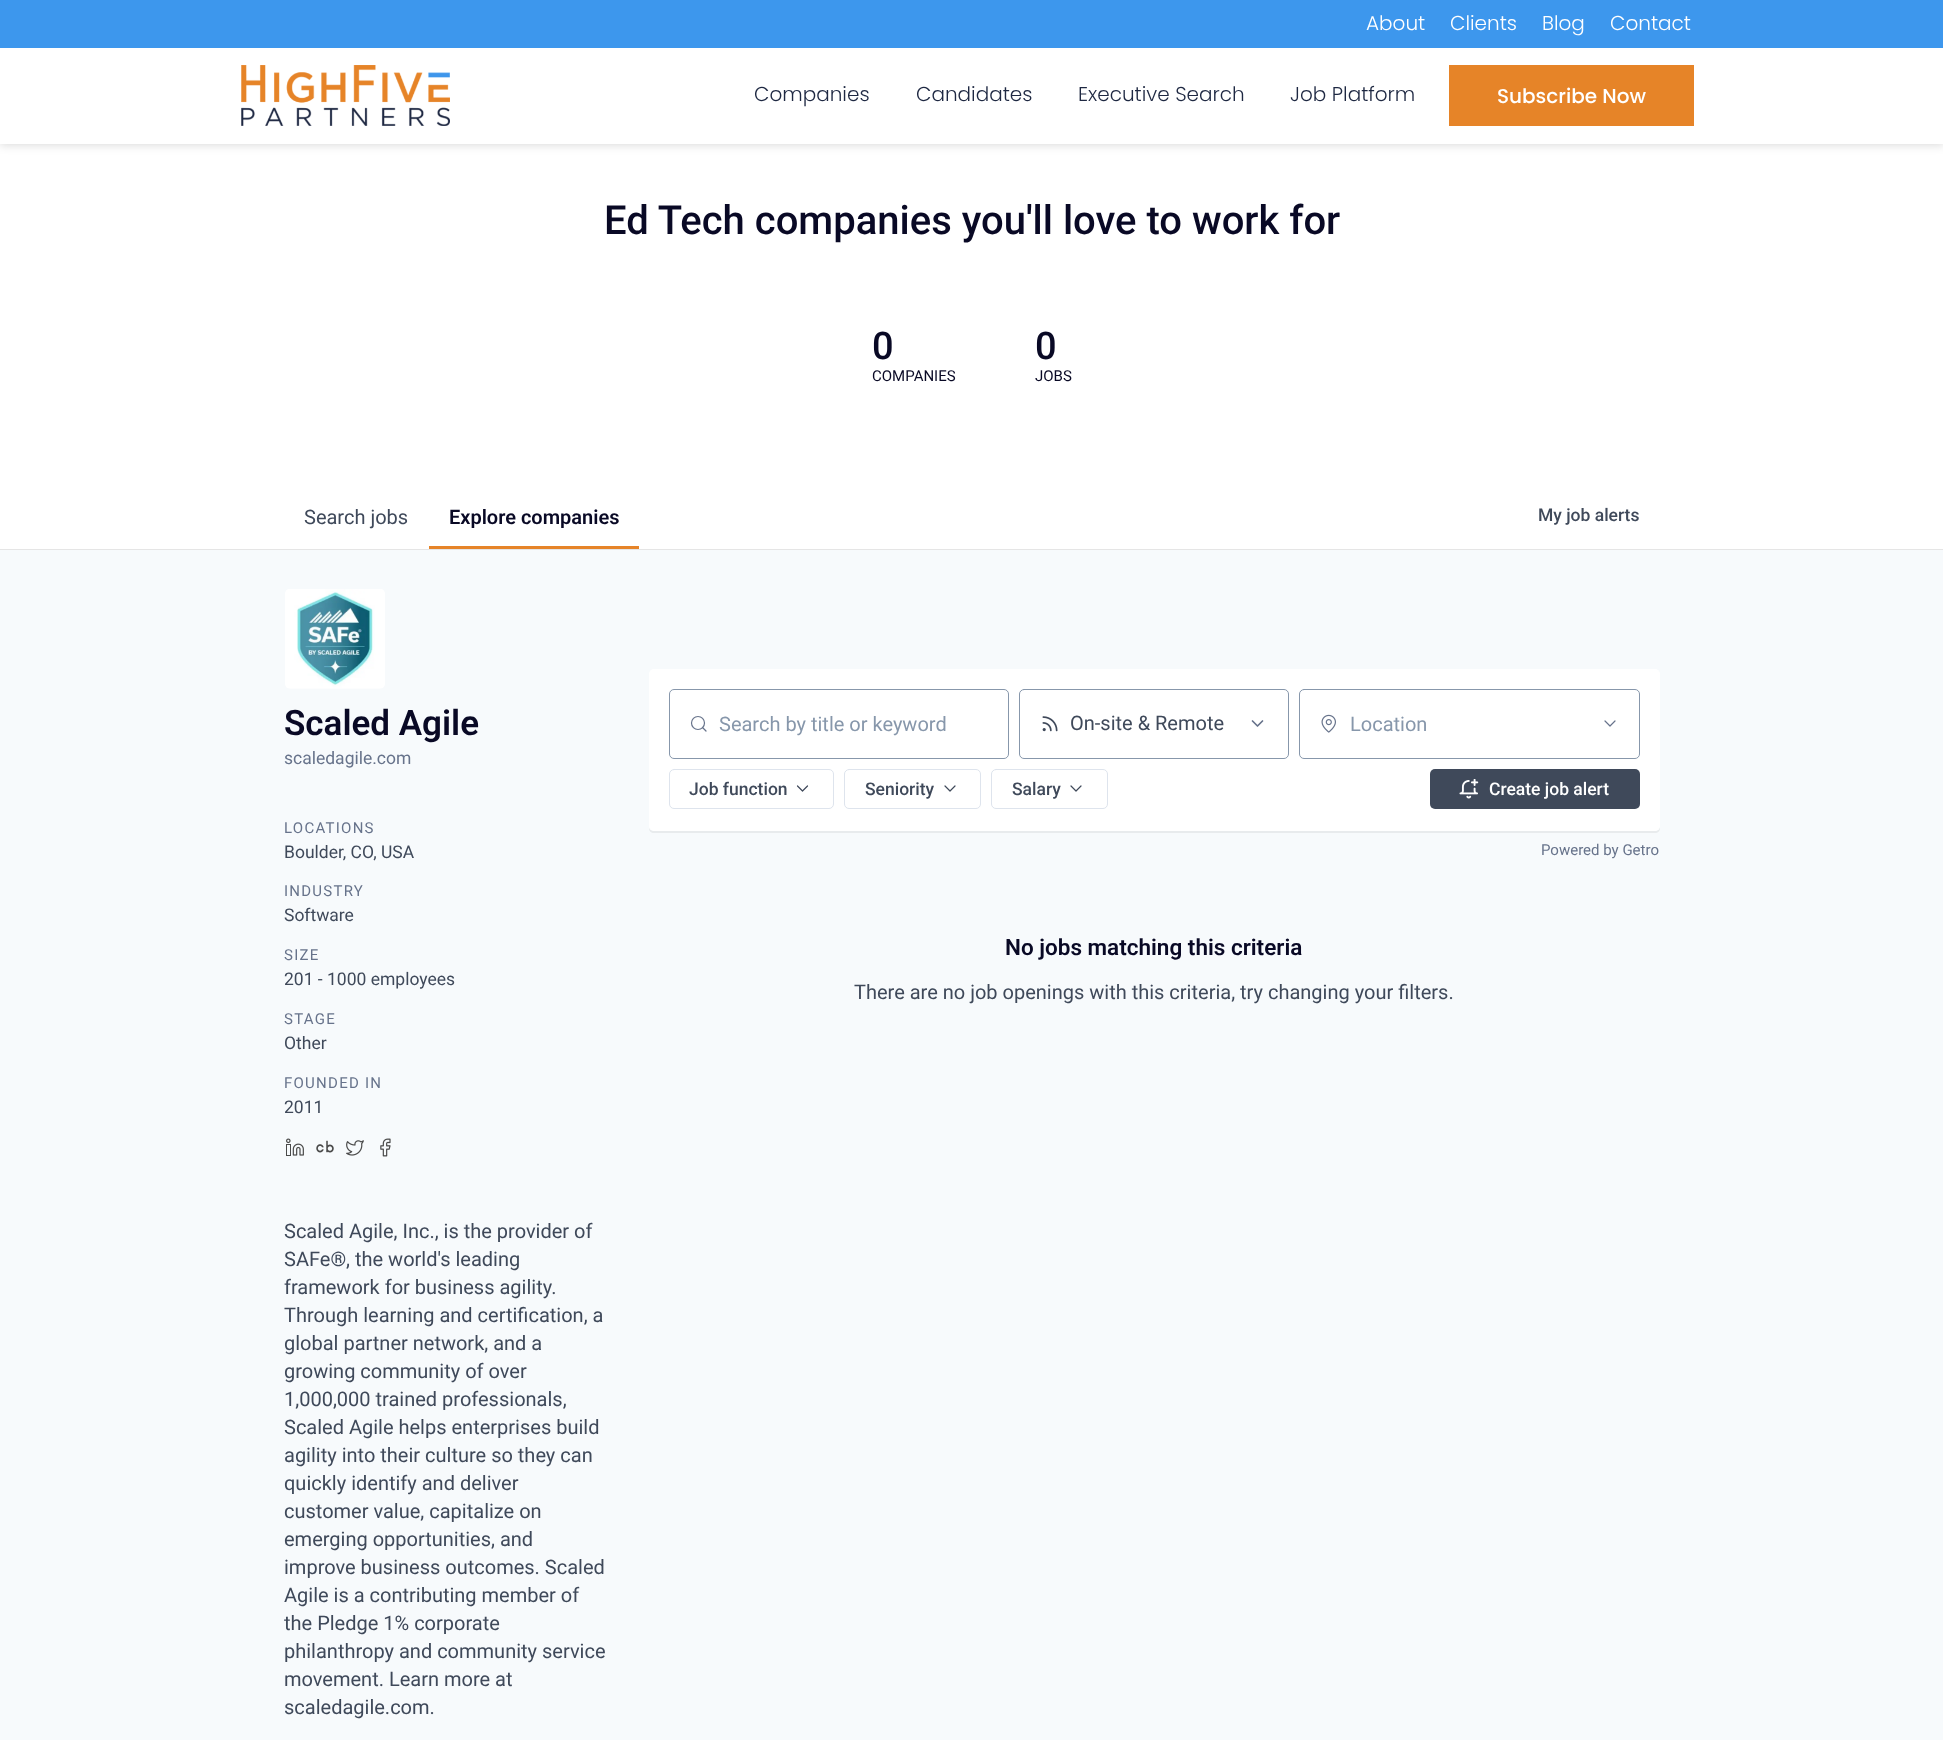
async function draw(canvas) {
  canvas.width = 1943;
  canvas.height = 1740;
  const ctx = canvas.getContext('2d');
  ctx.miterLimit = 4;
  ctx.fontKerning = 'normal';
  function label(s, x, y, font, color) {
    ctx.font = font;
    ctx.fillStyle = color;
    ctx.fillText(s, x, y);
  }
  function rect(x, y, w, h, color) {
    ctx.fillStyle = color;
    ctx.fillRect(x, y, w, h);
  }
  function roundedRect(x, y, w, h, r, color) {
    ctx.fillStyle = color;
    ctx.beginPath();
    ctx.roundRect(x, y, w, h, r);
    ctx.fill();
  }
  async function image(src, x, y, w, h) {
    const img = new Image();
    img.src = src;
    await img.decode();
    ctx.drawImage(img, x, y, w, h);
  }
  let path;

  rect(0, 0, 1943, 1740, '#f7fafc');
  rect(0, 144, 1943, 405, '#fff');
  ctx.fillStyle = '#00000026';
  ctx.filter = 'blur(5px)';
  ctx.beginPath();
  ctx.rect(0, 49, 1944, 96);
  ctx.fill();
  ctx.filter = 'none';
  rect(0, 0, 1943, 48, '#3d97ed');
  label('About', 1366, 30, '300 20px Poppins', '#fff');
  label('Clients', 1450, 30, '300 20px Poppins', '#fff');
  label('Blog', 1542, 30, '300 20px Poppins', '#fff');
  label('Contact', 1610, 30, '300 20px Poppins', '#fff');
  rect(0, 48, 1943, 96, '#fff');
  await image('assets/img1.png', 241, 65, 209, 61);
  label('Companies', 754, 101, '300 20px Poppins', '#1e2842');
  label('Candidates', 916, 101, '300 20px Poppins', '#1e2842');
  label('Executive Search', 1078, 101, '300 20px Poppins', '#1e2842');
  label('Job Platform', 1290, 101, '300 20px Poppins', '#1e2842');
  rect(1449, 65, 245, 61, '#e68428');
  label('Subscribe Now', 1497, 103, '500 20px Poppins', '#fff');
  label('Ed Tech companies you\'ll love to work for', 604, 234, '500 40px Roboto', '#090925');
  label('0', 872, 359, '500 38px Roboto', '#090925');
  label('COMPANIES', 872, 381, '15px Roboto', '#090925');
  label('0', 1035, 359, '500 38px Roboto', '#090925');
  label('JOBS', 1035, 381, '15px Roboto', '#090925');
  ctx.fillStyle = '#e5e5e5';
  path = new Path2D('M0 549V550H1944V486V549Z');
  ctx.fill(path);
  label('Search jobs', 304, 524, '20px Roboto', '#3f495a');
  label('Explore companies', 449, 524, '600 20px Roboto', '#090925');
  rect(429, 546, 210, 3, '#e68428');
  label('My job alerts', 1538, 521, '500 17.5px Roboto', '#3f495a');
  await image('assets/img2.png', 285, 589, 100, 100);
  label('Scaled Agile', 284, 735, '600 35px Roboto', '#090925');
  label('scaledagile.com', 284, 764, '17.5px Roboto', '#67738b');
  ctx.letterSpacing = '1.25px';
  label('LOCATIONS', 284, 833, '15px Roboto', '#67738b');
  ctx.letterSpacing = '0px';
  label('Boulder, CO, USA', 284, 858, '17.5px Roboto', '#3f495a');
  ctx.letterSpacing = '1.25px';
  label('INDUSTRY', 284, 896, '15px Roboto', '#67738b');
  ctx.letterSpacing = '0px';
  label('Software', 284, 921, '17.5px Roboto', '#3f495a');
  ctx.letterSpacing = '1.25px';
  label('SIZE', 284, 960, '15px Roboto', '#67738b');
  ctx.letterSpacing = '0px';
  label('201 - 1000 employees', 284, 985, '17.5px Roboto', '#3f495a');
  ctx.letterSpacing = '1.25px';
  label('STAGE', 284, 1024, '15px Roboto', '#67738b');
  ctx.letterSpacing = '0px';
  label('Other', 284, 1049, '17.5px Roboto', '#3f495a');
  ctx.letterSpacing = '1.25px';
  label('FOUNDED IN', 284, 1088, '15px Roboto', '#67738b');
  ctx.letterSpacing = '0px';
  label('2011', 284, 1113, '17.5px Roboto', '#3f495a');
  await image('assets/img3.png', 286, 1138, 18, 18);
  await image('assets/img4.png', 316, 1140, 18, 13);
  await image('assets/img5.png', 346, 1140, 18, 16);
  await image('assets/img6.png', 380, 1138, 11, 19);
  label('Scaled Agile, Inc., is the provider of', 284, 1238, '20px Roboto', '#3f495a');
  label('SAFe®, the world\'s leading', 284, 1266, '20px Roboto', '#3f495a');
  label('framework for business agility.', 284, 1294, '20px Roboto', '#3f495a');
  label('Through learning and certification, a', 284, 1322, '20px Roboto', '#3f495a');
  label('global partner network, and a', 284, 1350, '20px Roboto', '#3f495a');
  label('growing community of over', 284, 1378, '20px Roboto', '#3f495a');
  label('1,000,000 trained professionals,', 284, 1406, '20px Roboto', '#3f495a');
  label('Scaled Agile helps enterprises build', 284, 1434, '20px Roboto', '#3f495a');
  label('agility into their culture so they can', 284, 1462, '20px Roboto', '#3f495a');
  label('quickly identify and deliver', 284, 1490, '20px Roboto', '#3f495a');
  label('customer value, capitalize on', 284, 1518, '20px Roboto', '#3f495a');
  label('emerging opportunities, and', 284, 1546, '20px Roboto', '#3f495a');
  label('improve business outcomes. Scaled', 284, 1574, '20px Roboto', '#3f495a');
  label('Agile is a contributing member of', 284, 1602, '20px Roboto', '#3f495a');
  label('the Pledge 1% corporate', 284, 1630, '20px Roboto', '#3f495a');
  label('philanthropy and community service', 284, 1658, '20px Roboto', '#3f495a');
  label('movement. Learn more at', 284, 1686, '20px Roboto', '#3f495a');
  label('scaledagile.com.', 284, 1714, '20px Roboto', '#3f495a');
  ctx.fillStyle = '#e8ebed';
  path = new Path2D('M649 828C649 831 651 833 654 833H1655C1658 833 1660 831 1660 828V826C1660 829 1658 831 1655 831H654C652 831 650 830 649 828Z');
  ctx.fill(path);
  roundedRect(649, 669, 1011, 162, 5, '#fff');
  ctx.beginPath();
  ctx.roundRect(669.5, 689.5, 339, 69, 4.5);
  ctx.strokeStyle = '#8797ab';
  ctx.stroke();
  ctx.beginPath();
  ctx.arc(698, 723, 6.5, 0, 2 * Math.PI);
  ctx.strokeStyle = '#67738b';
  ctx.lineWidth = 1.2;
  ctx.stroke();
  path = new Path2D('M706 731L702.5 727.5');
  ctx.lineCap = 'round';
  ctx.lineJoin = 'round';
  ctx.stroke(path);
  label('Search by title or keyword', 719, 731, '20px Roboto', '#8797ab');
  ctx.beginPath();
  ctx.roundRect(1019.5, 689.5, 269, 69, 4.5);
  ctx.strokeStyle = '#8797ab';
  ctx.lineWidth = 1;
  ctx.lineJoin = 'miter';
  ctx.stroke();
  await image('assets/img7.png', 1042, 716, 16, 16);
  label('On-site & Remote', 1070, 730, '20px Roboto', '#3f495a');
  path = new Path2D('M1252.5 721L1257.5 726L1262.5 721');
  ctx.strokeStyle = '#67738b';
  ctx.lineWidth = 1.7;
  ctx.lineJoin = 'round';
  ctx.stroke(path);
  ctx.beginPath();
  ctx.roundRect(1299.5, 689.5, 340, 69, 4.5);
  ctx.strokeStyle = '#8797ab';
  ctx.lineWidth = 1;
  ctx.lineJoin = 'miter';
  ctx.stroke();
  await image('assets/img8.png', 1321, 714, 15, 19);
  label('Location', 1350, 731, '20px Roboto', '#8797ab');
  path = new Path2D('M1605 721L1610 726L1615 721');
  ctx.strokeStyle = '#67738b';
  ctx.lineWidth = 1.2;
  ctx.lineJoin = 'round';
  ctx.stroke(path);
  ctx.beginPath();
  ctx.roundRect(669.5, 769.5, 164, 39, 4.5);
  ctx.strokeStyle = '#dee4ed';
  ctx.lineWidth = 1;
  ctx.lineJoin = 'miter';
  ctx.stroke();
  label('Job function', 689, 795, '500 17.5px Roboto', '#3f495a');
  path = new Path2D('M797.5 786L802.5 791L807.5 786');
  ctx.strokeStyle = '#3f495a';
  ctx.lineWidth = 1.2;
  ctx.lineJoin = 'round';
  ctx.stroke(path);
  ctx.beginPath();
  ctx.roundRect(844.5, 769.5, 136, 39, 4.5);
  ctx.strokeStyle = '#dee4ed';
  ctx.lineWidth = 1;
  ctx.lineJoin = 'miter';
  ctx.stroke();
  label('Seniority', 865, 795, '500 17.5px Roboto', '#3f495a');
  path = new Path2D('M945 786L950 791L955 786');
  ctx.strokeStyle = '#3f495a';
  ctx.lineWidth = 1.2;
  ctx.lineJoin = 'round';
  ctx.stroke(path);
  ctx.beginPath();
  ctx.roundRect(991.5, 769.5, 116, 39, 4.5);
  ctx.strokeStyle = '#dee4ed';
  ctx.lineWidth = 1;
  ctx.lineJoin = 'miter';
  ctx.stroke();
  label('Salary', 1012, 795, '500 17.5px Roboto', '#3f495a');
  path = new Path2D('M1071 786L1076 791L1081 786');
  ctx.strokeStyle = '#3f495a';
  ctx.lineWidth = 1.2;
  ctx.lineJoin = 'round';
  ctx.stroke(path);
  roundedRect(1430, 769, 210, 40, 5, '#3f495a');
  await image('assets/img9.png', 1459, 779, 20, 20);
  label('Create job alert', 1489, 795, '500 17.5px Roboto', '#fff');
  label('Powered by Getro', 1541, 855, '15px Roboto', '#67738b');
  label('No jobs matching this criteria', 1005, 955, '600 22.5px Roboto', '#090925');
  label('There are no job openings with this criteria, try changing your filters.', 854, 999, '20px Roboto', '#3f495a');
}

draw(document.querySelector('canvas'));
